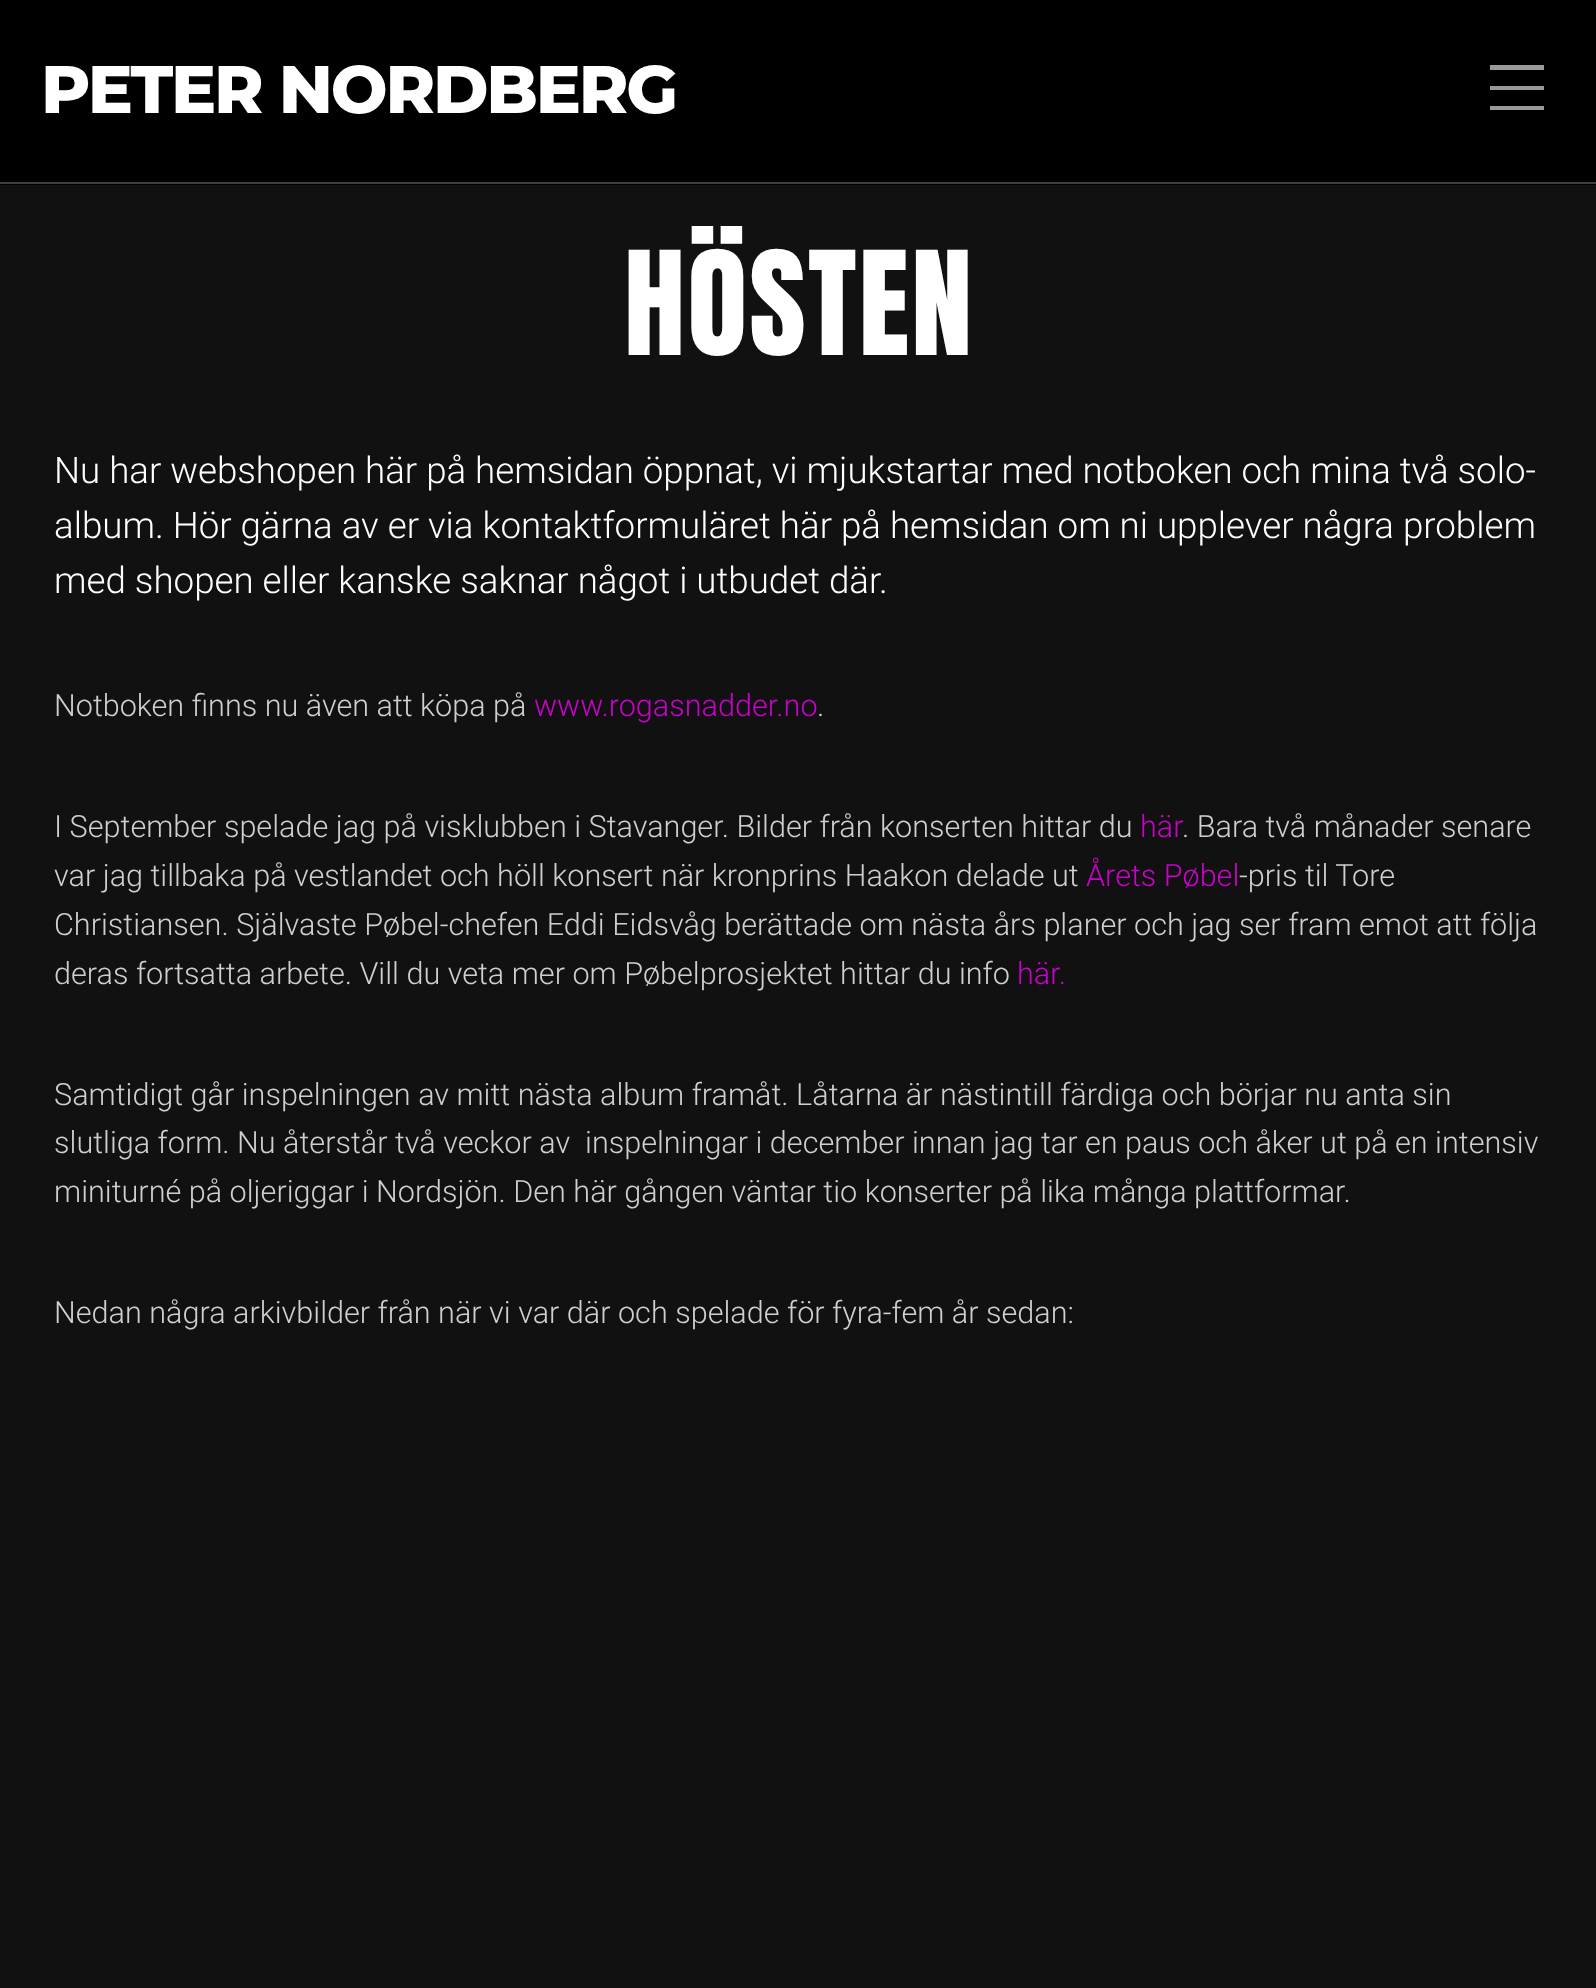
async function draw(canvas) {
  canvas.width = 1596;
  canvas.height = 1988;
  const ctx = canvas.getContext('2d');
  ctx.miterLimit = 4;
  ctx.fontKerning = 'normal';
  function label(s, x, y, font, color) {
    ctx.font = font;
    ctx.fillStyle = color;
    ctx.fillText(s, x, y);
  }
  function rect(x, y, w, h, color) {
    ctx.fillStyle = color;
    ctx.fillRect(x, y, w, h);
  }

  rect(0, 0, 1596, 1988, '#111');
  rect(0, 0, 1596, 185, '#000');
  rect(0, 182, 1596, 2, '#3d3d3d');
  ctx.letterSpacing = '-2.25px';
  label('PETER NORDBERG', 41, 113, '800 67.25px Montserrat', '#fff');
  rect(1490, 65, 54, 5, '#999');
  rect(1490, 86, 54, 4, '#999');
  rect(1490, 106, 54, 4, '#999');
  ctx.letterSpacing = '2.25px';
  label('HÖSTEN', 624, 355, '122.5px Anton', '#fff');
  ctx.letterSpacing = '0px';
  label('Nu har webshopen här på hemsidan öppnat, vi mjukstartar med notboken och mina två solo-', 54, 483, '300 36.7px Roboto', '#fff');
  label('album. Hör gärna av er via kontaktformuläret här på hemsidan om ni upplever några problem', 54, 538, '300 36.7px Roboto', '#fff');
  label('med shopen eller kanske saknar något i utbudet där.', 54, 593, '300 36.7px Roboto', '#fff');
  label('Notboken finns nu även att köpa på', 54, 716, '300 30.6px Roboto', '#cfcfcf');
  label('www.rogasnadder.no', 534, 716, '300 30.6px Roboto', '#c0c');
  label('.', 817, 716, '300 30.6px Roboto', '#cfcfcf');
  label('I September spelade jag på visklubben i Stavanger. Bilder från konserten hittar du', 54, 837, '300 30.6px Roboto', '#cfcfcf');
  label('här', 1140, 837, '300 30.6px Roboto', '#c0c');
  label('. Bara två månader senare', 1182, 837, '300 30.6px Roboto', '#cfcfcf');
  label('var jag tillbaka på vestlandet och höll konsert när kronprins Haakon delade ut', 54, 886, '300 30.6px Roboto', '#cfcfcf');
  label('Årets Pøbel', 1086, 886, '300 30.6px Roboto', '#c0c');
  label('-pris til Tore', 1239, 886, '300 30.6px Roboto', '#cfcfcf');
  label('Christiansen. Självaste Pøbel-chefen Eddi Eidsvåg berättade om nästa års planer och jag ser fram emot att följa', 54, 935, '300 30.6px Roboto', '#cfcfcf');
  label('deras fortsatta arbete. Vill du veta mer om Pøbelprosjektet hittar du info', 54, 984, '300 30.6px Roboto', '#cfcfcf');
  label('här.', 1017, 984, '300 30.6px Roboto', '#c0c');
  label('Samtidigt går inspelningen av mitt nästa album framåt. Låtarna är nästintill färdiga och börjar nu anta sin', 54, 1105, '300 30.6px Roboto', '#cfcfcf');
  label('slutliga form. Nu återstår två veckor av  inspelningar i december innan jag tar en paus och åker ut på en intensiv', 54, 1153, '300 30.6px Roboto', '#cfcfcf');
  label('miniturné på oljeriggar i Nordsjön. Den här gången väntar tio konserter på lika många plattformar.', 54, 1202, '300 30.6px Roboto', '#cfcfcf');
  label('Nedan några arkivbilder från när vi var där och spelade för fyra-fem år sedan:', 54, 1323, '300 30.6px Roboto', '#cfcfcf');
}

draw(document.querySelector('canvas'));
